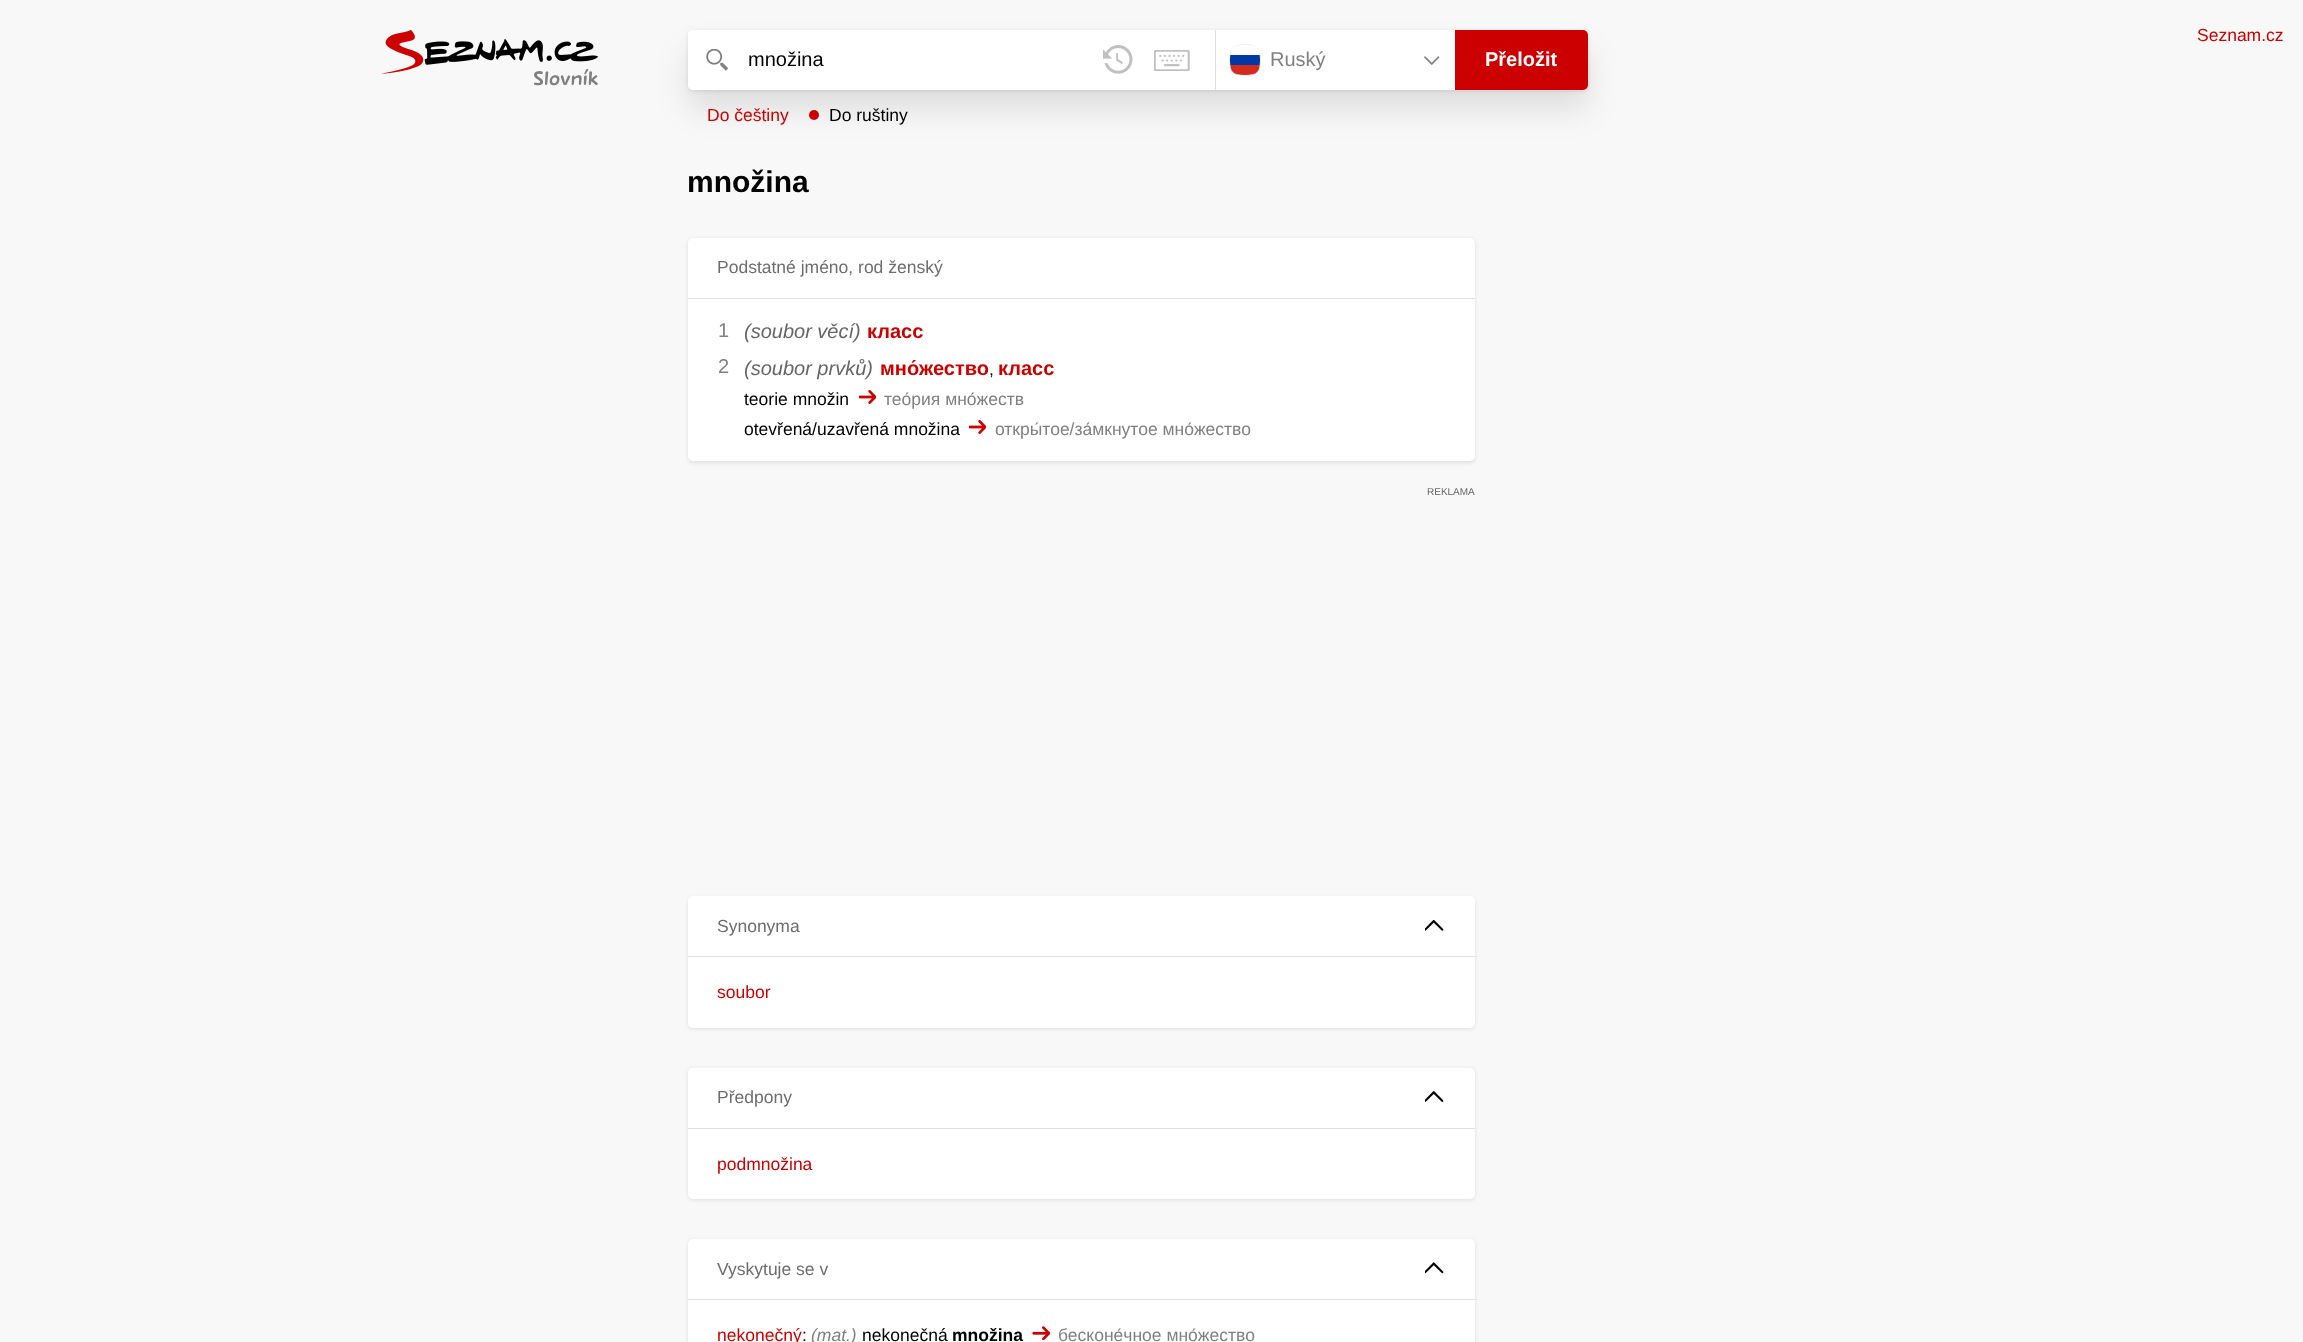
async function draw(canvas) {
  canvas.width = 2303;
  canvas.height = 1342;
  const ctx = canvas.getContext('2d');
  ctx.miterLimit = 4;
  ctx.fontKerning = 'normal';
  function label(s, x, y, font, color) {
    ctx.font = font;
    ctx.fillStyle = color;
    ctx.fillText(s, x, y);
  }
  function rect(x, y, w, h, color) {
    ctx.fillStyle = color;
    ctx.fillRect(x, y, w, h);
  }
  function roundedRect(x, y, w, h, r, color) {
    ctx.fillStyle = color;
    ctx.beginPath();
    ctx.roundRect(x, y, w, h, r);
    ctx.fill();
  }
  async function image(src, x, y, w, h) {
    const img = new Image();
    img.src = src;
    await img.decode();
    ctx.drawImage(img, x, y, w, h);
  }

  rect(0, 0, 2303, 1342, '#f8f8f8');
  await image('assets/img1.png', 381, 30, 218, 56);
  ctx.fillStyle = '#0000001a';
  ctx.filter = 'blur(2px)';
  ctx.beginPath();
  ctx.roundRect(688, 31, 900, 60, 5);
  ctx.fill();
  ctx.filter = 'none';
  ctx.filter = 'blur(15px)';
  ctx.beginPath();
  ctx.roundRect(688, 50, 900, 60, 5);
  ctx.fill();
  ctx.filter = 'none';
  roundedRect(688, 30, 900, 60, 5, '#fff');
  roundedRect(688, 30, 60, 60, 5, '#fff');
  await image('assets/img2.png', 706, 49, 22, 22);
  label('množina', 748, 66, '20px Liberation Sans', '#000');
  await image('assets/img3.png', 1103, 45, 30, 29);
  await image('assets/img4.png', 1154, 50, 36, 21);
  rect(1215, 30, 1, 60, '#e0e0e0');
  await image('assets/img5.png', 1229, 44, 32, 32);
  label('Ruský', 1270, 66, '20px Liberation Sans', '#808080');
  await image('assets/img6.png', 1424, 56, 16, 9);
  ctx.fillStyle = '#c00';
  ctx.beginPath();
  ctx.roundRect(1455, 30, 133, 60, [0, 5, 5, 0]);
  ctx.fill();
  label('Přeložit', 1485, 66, 'bold 20px Liberation Sans', '#fff');
  label('Do češtiny', 707, 121, '17.5px Liberation Sans', '#c00');
  ctx.beginPath();
  ctx.arc(814, 115, 5, 0, 2 * Math.PI);
  ctx.fill();
  label('Do ruštiny', 829, 121, '17.5px Liberation Sans', '#000');
  label('Seznam.cz', 2197, 41, '17.5px Liberation Sans', '#c00');
  label('množina', 687, 192, 'bold 30px Liberation Sans', '#000');
  ctx.fillStyle = '#0000001a';
  ctx.filter = 'blur(2px)';
  ctx.beginPath();
  ctx.roundRect(688, 239, 787, 224, 5);
  ctx.fill();
  ctx.filter = 'none';
  roundedRect(688, 238, 787, 223, 5, '#fff');
  rect(688, 298, 787, 1, '#e0e0e0');
  label('Podstatné jméno, rod ženský', 717, 273, '17.5px Liberation Sans', '#6d6d6d');
  label('1', 718, 337, '20px Liberation Sans', '#808080');
  label('(soubor věcí)', 744, 338, 'italic 20px Liberation Sans', '#666');
  label('класс', 867, 338, 'bold 20px Liberation Sans', '#c00');
  label('2', 718, 373, '20px Liberation Sans', '#808080');
  label('(soubor prvků)', 744, 375, 'italic 20px Liberation Sans', '#666');
  label('мно́жество', 880, 375, 'bold 20px Liberation Sans', '#c00');
  label(',', 989, 375, '17.5px Liberation Sans', '#000');
  label('класс', 998, 375, 'bold 20px Liberation Sans', '#c00');
  label('teorie množin', 744, 405, '17.5px Liberation Sans', '#000');
  await image('assets/img7.png', 859, 390, 17, 14);
  label('тео́рия мно́жеств', 884, 405, '17.5px Liberation Sans', '#808080');
  label('otevřená/uzavřená množina', 744, 435, '17.5px Liberation Sans', '#000');
  await image('assets/img7.png', 969, 420, 17, 14);
  label('откры́тое/за́мкнутое мно́жество', 995, 435, '17.5px Liberation Sans', '#808080');
  label('REKLAMA', 1427, 495, '10px Liberation Sans', '#666');
  ctx.fillStyle = '#0000001a';
  ctx.filter = 'blur(2px)';
  ctx.beginPath();
  ctx.roundRect(688, 898, 787, 131, 5);
  ctx.fill();
  ctx.filter = 'none';
  roundedRect(688, 896, 787, 132, 5, '#fff');
  rect(688, 956, 787, 1, '#e0e0e0');
  label('Synonyma', 717, 932, '17.5px Liberation Sans', '#6d6d6d');
  await image('assets/img8.png', 1425, 920, 19, 11);
  label('soubor', 717, 998, '17.5px Liberation Sans', '#c00');
  ctx.fillStyle = '#0000001a';
  ctx.filter = 'blur(2px)';
  ctx.beginPath();
  ctx.roundRect(688, 1069, 787, 131, 5);
  ctx.fill();
  ctx.filter = 'none';
  roundedRect(688, 1068, 787, 131, 5, '#fff');
  rect(688, 1128, 787, 1, '#e0e0e0');
  label('Předpony', 717, 1103, '17.5px Liberation Sans', '#6d6d6d');
  await image('assets/img9.png', 1425, 1091, 19, 11);
  label('podmnožina', 717, 1170, '17.5px Liberation Sans', '#c00');
  ctx.fillStyle = '#0000001a';
  ctx.filter = 'blur(2px)';
  ctx.beginPath();
  ctx.roundRect(688, 1240, 787, 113, 5);
  ctx.fill();
  ctx.filter = 'none';
  roundedRect(688, 1239, 787, 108, 5, '#fff');
  rect(688, 1299, 787, 1, '#e0e0e0');
  label('Vyskytuje se v', 717, 1275, '17.5px Liberation Sans', '#6d6d6d');
  await image('assets/img10.png', 1425, 1262, 19, 12);
  label('nekonečný', 717, 1341, '17.5px Liberation Sans', '#c00');
  label(':', 802, 1341, '17.5px Liberation Sans', '#000');
  label('(mat.)', 811, 1341, 'italic 17.5px Liberation Sans', '#808080');
  label('nekonečná', 862, 1341, '17.5px Liberation Sans', '#000');
  label('množina', 952, 1341, 'bold 17.5px Liberation Sans', '#000');
  await image('assets/img11.png', 1032, 1326, 18, 14);
  label('бесконе́чное мно́жество', 1058, 1341, '17.5px Liberation Sans', '#808080');
}

draw(document.querySelector('canvas'));
